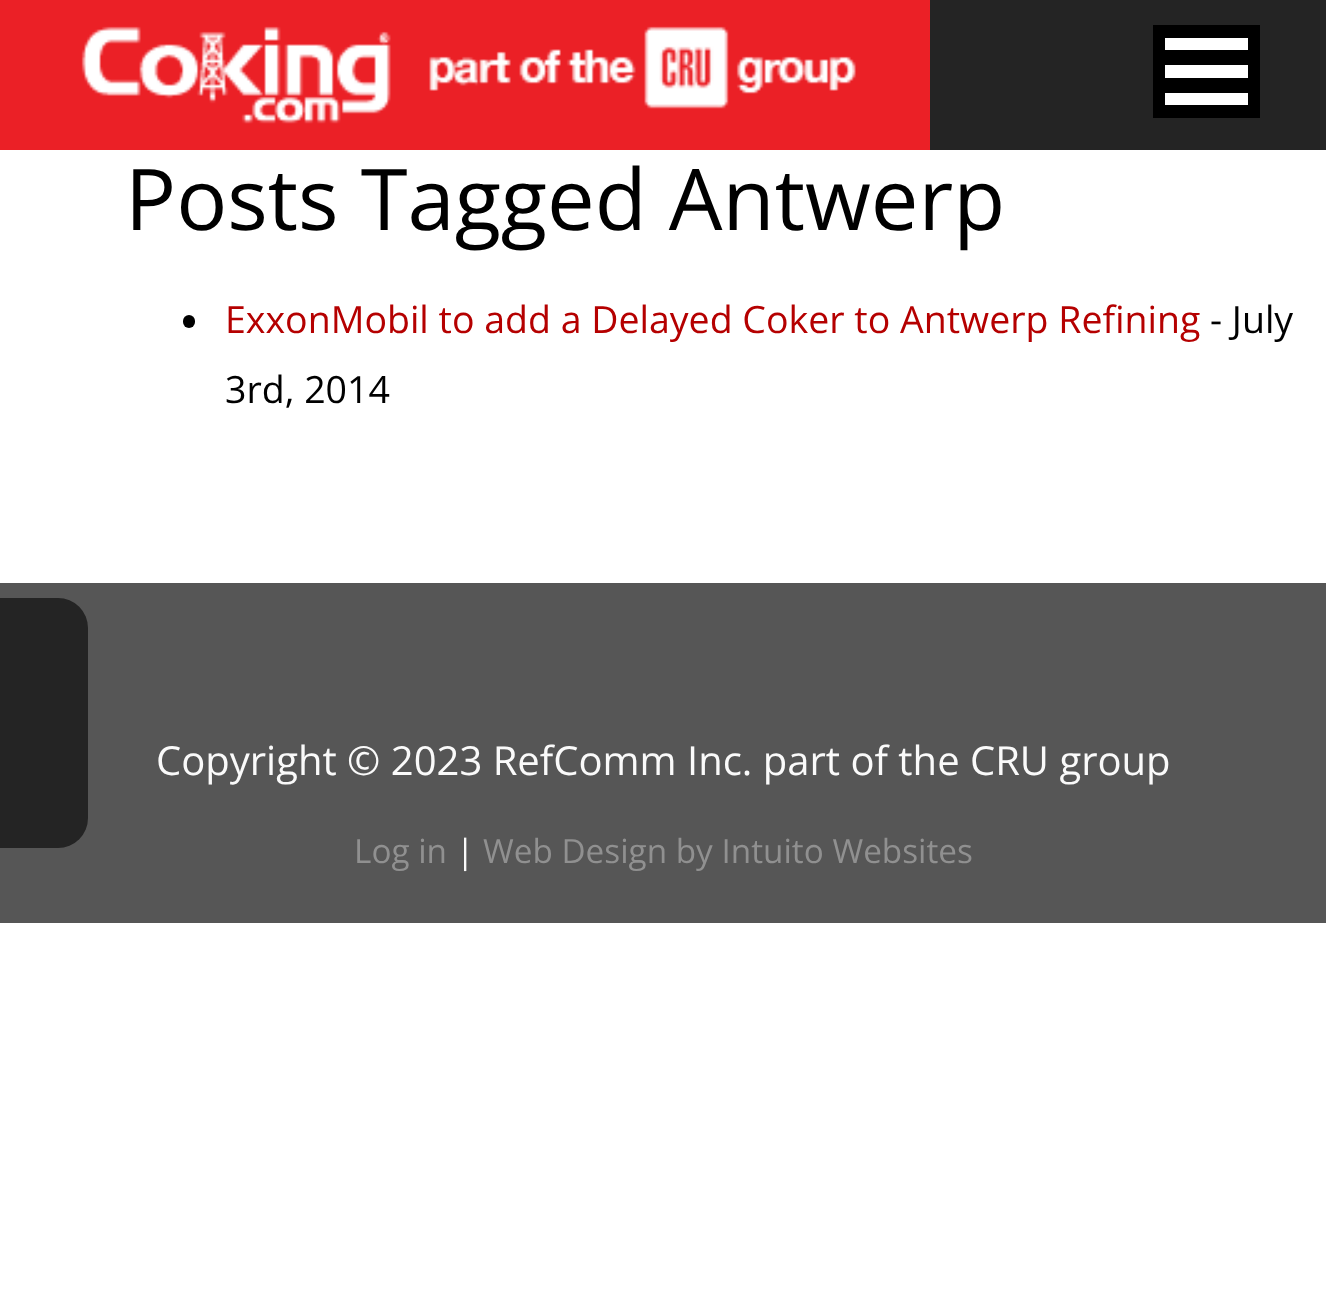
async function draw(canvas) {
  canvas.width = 1326;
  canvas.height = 1294;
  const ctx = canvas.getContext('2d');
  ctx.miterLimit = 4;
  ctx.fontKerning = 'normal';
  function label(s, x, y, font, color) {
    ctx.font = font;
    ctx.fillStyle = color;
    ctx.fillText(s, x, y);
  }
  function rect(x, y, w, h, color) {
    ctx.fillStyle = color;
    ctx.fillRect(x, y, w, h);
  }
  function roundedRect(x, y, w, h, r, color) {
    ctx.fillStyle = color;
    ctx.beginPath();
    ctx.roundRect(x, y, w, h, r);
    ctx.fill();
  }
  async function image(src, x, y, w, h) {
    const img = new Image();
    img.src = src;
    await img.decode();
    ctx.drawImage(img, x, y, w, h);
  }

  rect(0, 0, 1326, 1294, '#fff');
  rect(930, 0, 396, 150, '#242424');
  await image('assets/img1.png', 0, 0, 930, 150);
  rect(1153, 25, 107, 93, '#000');
  rect(1165, 38, 83, 12, '#fff');
  rect(1165, 65, 83, 13, '#fff');
  rect(1165, 93, 83, 12, '#fff');
  label('Posts Tagged Antwerp', 125, 230, '85px Open Sans', '#000');
  roundedRect(183, 315, 12, 13, 6, '#000');
  label('ExxonMobil to add a Delayed Coker to Antwerp Refining', 225, 333, '37.5px Open Sans', '#b50000');
  label('- July', 1210, 333, '37.5px Open Sans', '#000');
  label('3rd, 2014', 225, 403, '37.5px Open Sans', '#000');
  rect(0, 583, 1326, 340, '#565656');
  ctx.fillStyle = '#242424';
  ctx.beginPath();
  ctx.roundRect(0, 598, 88, 250, [0, 30, 30, 0]);
  ctx.fill();
  label('Copyright © 2023 RefComm Inc. part of the CRU group', 156, 775, '40px Open Sans', '#fafafa');
  label('Log in', 354, 863, '33.3px Open Sans', '#909090');
  label('|', 456, 863, '33.3px Open Sans', '#fafafa');
  label('Web Design by Intuito Websites', 483, 863, '33.3px Open Sans', '#909090');
}

draw(document.querySelector('canvas'));
